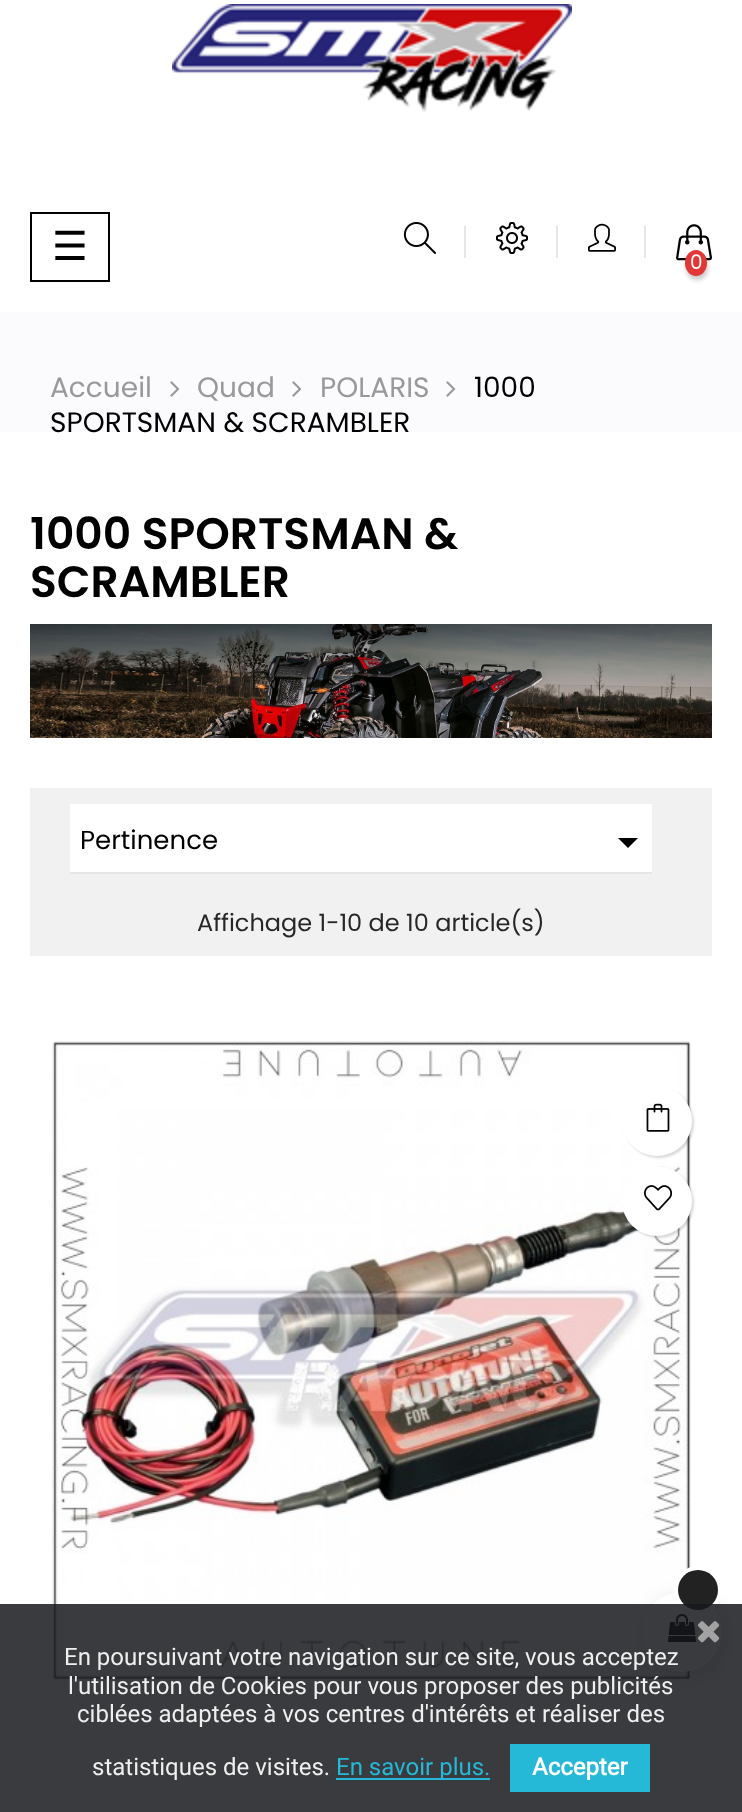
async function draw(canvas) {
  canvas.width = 742;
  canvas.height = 1812;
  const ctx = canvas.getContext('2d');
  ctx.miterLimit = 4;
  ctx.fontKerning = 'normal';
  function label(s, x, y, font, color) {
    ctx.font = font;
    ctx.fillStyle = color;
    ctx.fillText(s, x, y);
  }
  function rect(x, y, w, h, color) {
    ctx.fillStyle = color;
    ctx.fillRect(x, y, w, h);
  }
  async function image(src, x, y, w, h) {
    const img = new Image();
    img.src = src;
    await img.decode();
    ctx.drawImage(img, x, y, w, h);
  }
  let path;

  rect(0, 0, 742, 1812, '#fff');
  await image('assets/img1.png', 172, 4, 400, 108);
  ctx.strokeStyle = '#000';
  ctx.lineWidth = 2;
  ctx.strokeRect(31, 213, 78, 68);
  label('☰', 52, 260, '40px DejaVu Sans', '#000');
  await image('assets/img2.png', 403, 222, 33, 32);
  rect(464, 226, 2, 32, '#e6e6e6');
  await image('assets/img3.png', 496, 222, 32, 32);
  rect(556, 226, 2, 32, '#e6e6e6');
  await image('assets/img4.png', 588, 223, 28, 29);
  rect(644, 226, 2, 32, '#e6e6e6');
  await image('assets/img5.png', 676, 224, 36, 37);
  ctx.fillStyle = '#00000033';
  ctx.filter = 'blur(2px)';
  ctx.beginPath();
  ctx.roundRect(686, 254, 22, 26, 11);
  ctx.fill();
  ctx.filter = 'none';
  ctx.fillStyle = '#e13737';
  ctx.beginPath();
  ctx.ellipse(696, 263, 11, 13, 0, 0, 2 * Math.PI);
  ctx.fill();
  label('0', 690, 269, '20px Poppins', '#fff');
  rect(0, 312, 742, 120, '#fbfbfd');
  label('Accueil', 50, 397, '28px Poppins', '#999');
  await image('assets/img6.png', 170, 381, 10, 16);
  label('Quad', 197, 397, '28px Poppins', '#999');
  await image('assets/img6.png', 292, 381, 10, 16);
  label('POLARIS', 320, 397, '28px Poppins', '#999');
  await image('assets/img6.png', 446, 381, 10, 16);
  label('1000', 474, 397, '28px Poppins', '#000');
  label('SPORTSMAN & SCRAMBLER', 50, 432, '28px Poppins', '#000');
  label('1000 SPORTSMAN &', 30, 549, '600 44px Poppins', '#000');
  label('SCRAMBLER', 30, 597, '600 44px Poppins', '#000');
  await image('assets/img7.png', 30, 624, 682, 114);
  rect(30, 788, 682, 168, '#f1f1f1');
  rect(70, 804, 582, 68, '#fff');
  rect(70, 872, 582, 2, '#e6e6e6');
  label('Pertinence', 80, 849, '26px Poppins', '#000');
  path = new Path2D('M618 838H638L628 848Z');
  ctx.fill(path);
  label('Affichage 1-10 de 10 article(s)', 197, 931, '24px Poppins', '#272727');
  await image('assets/img8.png', 52, 1041, 639, 640);
  ctx.fillStyle = '#00000026';
  ctx.filter = 'blur(1px)';
  ctx.beginPath();
  ctx.roundRect(624, 1088, 70, 70, 35);
  ctx.fill();
  ctx.filter = 'none';
  ctx.fillStyle = '#fff';
  ctx.beginPath();
  ctx.arc(657, 1121, 35, 0, 2 * Math.PI);
  ctx.fill();
  await image('assets/img9.png', 646, 1103, 24, 29);
  ctx.fillStyle = '#00000026';
  ctx.filter = 'blur(1px)';
  ctx.beginPath();
  ctx.roundRect(624, 1168, 70, 70, 35);
  ctx.fill();
  ctx.filter = 'none';
  ctx.fillStyle = '#fff';
  ctx.beginPath();
  ctx.arc(657, 1201, 35, 0, 2 * Math.PI);
  ctx.fill();
  await image('assets/img10.png', 644, 1185, 29, 26);
  ctx.fillStyle = '#00000026';
  ctx.filter = 'blur(10px)';
  ctx.beginPath();
  ctx.roundRect(646, 1598, 80, 80, 40);
  ctx.fill();
  ctx.filter = 'none';
  ctx.fillStyle = '#fff';
  ctx.beginPath();
  ctx.arc(682, 1632, 40, 0, 2 * Math.PI);
  ctx.fill();
  ctx.beginPath();
  ctx.arc(698, 1590, 22, 0, 2 * Math.PI);
  ctx.strokeStyle = '#fff';
  ctx.lineWidth = 4;
  ctx.stroke();
  ctx.fillStyle = '#222';
  ctx.beginPath();
  ctx.arc(698, 1590, 20, 0, 2 * Math.PI);
  ctx.fill();
  await image('assets/img12.png', 668, 1614, 28, 28);
  rect(0, 1604, 742, 208, '#17191cd9');
  await image('assets/img11.png', 698, 1621, 22, 22);
  label('En poursuivant votre navigation sur ce site, vous acceptez', 64, 1665, '24px Roboto', '#efefef');
  label('l\'utilisation de Cookies pour vous proposer des publicités', 68, 1694, '24px Roboto', '#efefef');
  label('ciblées adaptées à vos centres d\'intérêts et réaliser des', 77, 1722, '24px Roboto', '#efefef');
  label('statistiques de visites.', 92, 1775, '24px Roboto', '#efefef');
  rect(336, 1778, 154, 2, '#25b9d7');
  label('En savoir plus.', 336, 1775, '24px Roboto', '#25b9d7');
  rect(510, 1744, 140, 48, '#25b9d7');
  label('Accepter', 532, 1775, 'bold 24px Roboto', '#fff');
}

draw(document.querySelector('canvas'));
